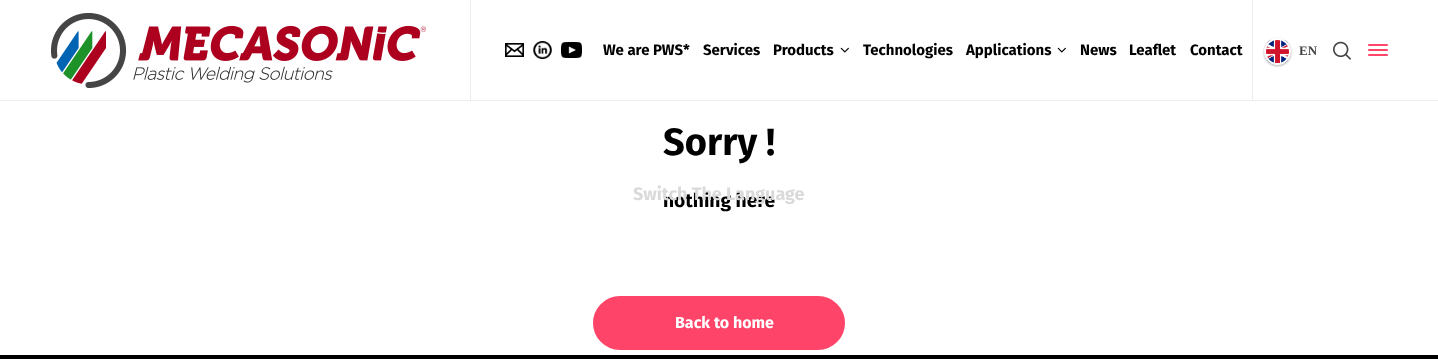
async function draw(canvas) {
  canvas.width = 1438;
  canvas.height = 359;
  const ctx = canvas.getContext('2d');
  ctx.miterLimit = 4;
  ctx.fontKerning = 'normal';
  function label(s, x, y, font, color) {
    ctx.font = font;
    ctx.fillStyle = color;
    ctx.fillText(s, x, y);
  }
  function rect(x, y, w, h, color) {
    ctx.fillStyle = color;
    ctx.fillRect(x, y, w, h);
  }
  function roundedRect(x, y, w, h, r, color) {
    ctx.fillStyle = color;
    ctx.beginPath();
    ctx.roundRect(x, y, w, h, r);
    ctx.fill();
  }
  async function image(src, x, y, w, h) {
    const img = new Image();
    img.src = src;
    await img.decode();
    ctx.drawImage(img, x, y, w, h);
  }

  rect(0, 0, 1438, 359, '#fff');
  rect(470, 0, 1, 100, '#ededed');
  await image('assets/img1.png', 51, 13, 375, 75);
  await image('assets/img2.png', 505, 43, 19, 14);
  await image('assets/img3.png', 533, 41, 19, 18);
  await image('assets/img4.png', 561, 42, 21, 16);
  rect(1252, 0, 1, 100, '#ededed');
  label('We are PWS*', 603, 55, 'bold 15px Fira Sans', '#000');
  label('Services', 703, 55, 'bold 15px Fira Sans', '#000');
  label('Products', 773, 55, 'bold 15px Fira Sans', '#000');
  await image('assets/img5.png', 840, 47, 9, 6);
  label('Technologies', 863, 55, 'bold 15px Fira Sans', '#000');
  label('Applications', 966, 55, 'bold 15px Fira Sans', '#000');
  await image('assets/img5.png', 1057, 47, 9, 6);
  label('News', 1080, 55, 'bold 15px Fira Sans', '#000');
  label('Leaflet', 1129, 55, 'bold 15px Fira Sans', '#000');
  label('Contact', 1190, 55, 'bold 15px Fira Sans', '#000');
  ctx.fillStyle = '#0000004d';
  ctx.filter = 'blur(1px)';
  ctx.beginPath();
  ctx.roundRect(1264, 39, 27, 27, 13.5);
  ctx.fill();
  ctx.filter = 'none';
  await image('assets/img6.png', 1264, 40, 27, 23);
  ctx.beginPath();
  ctx.arc(1277.5, 51.5, 12.5, 0, 2 * Math.PI);
  ctx.strokeStyle = '#fff';
  ctx.lineWidth = 2;
  ctx.stroke();
  label('EN', 1299, 55, 'bold 13px Liberation Serif', '#444');
  await image('assets/img7.png', 1333, 41, 18, 19);
  roundedRect(1368, 44, 20, 2, 1, '#ff4569');
  roundedRect(1368, 49, 20, 2, 1, '#ff4569');
  roundedRect(1368, 54, 20, 2, 1, '#ff4569');
  rect(0, 100, 1438, 1, '#ededed');
  label('Sorry !', 663, 155, 'bold 38px Fira Sans', '#000');
  label('nothing here', 663, 207, 'bold 19.25px Fira Sans', '#000');
  ctx.fillStyle = '#ff4469';
  ctx.beginPath();
  ctx.roundRect(594, 297, 250, 52, 26);
  ctx.fill();
  ctx.strokeStyle = '#ff4469';
  ctx.stroke();
  label('Back to home', 675, 328, 'bold 16px Fira Sans', '#fff');
  label('Switch The Language', 633, 200, 'bold 18px Fira Sans', '#dadada');
  rect(0, 355, 1438, 4, '#000');
}

draw(document.querySelector('canvas'));
